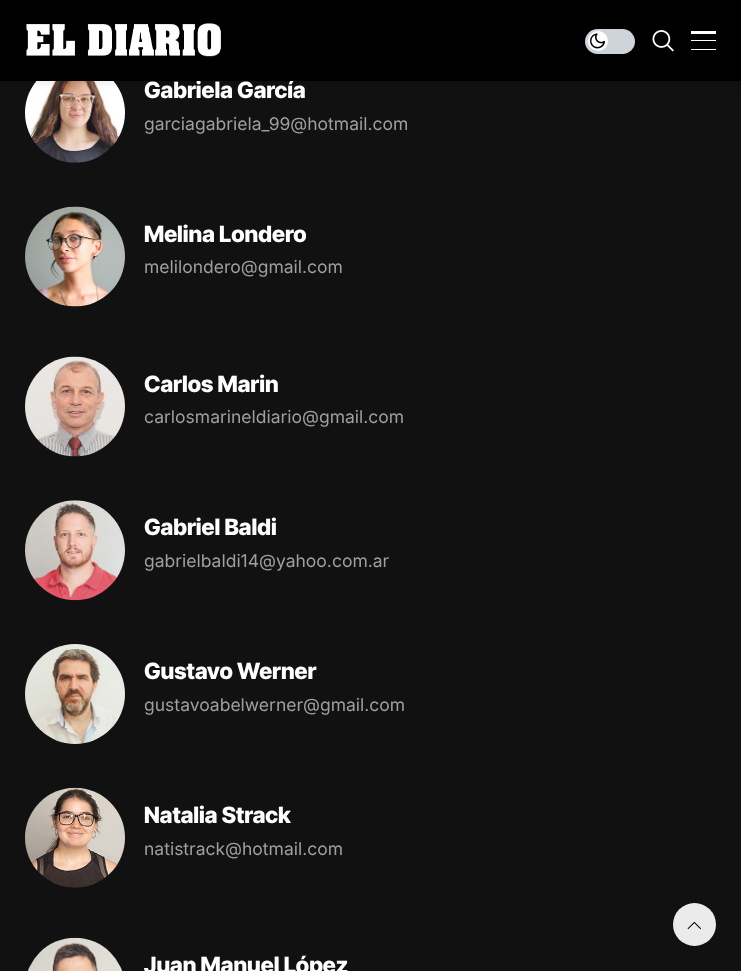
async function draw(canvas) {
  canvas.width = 741;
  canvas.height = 971;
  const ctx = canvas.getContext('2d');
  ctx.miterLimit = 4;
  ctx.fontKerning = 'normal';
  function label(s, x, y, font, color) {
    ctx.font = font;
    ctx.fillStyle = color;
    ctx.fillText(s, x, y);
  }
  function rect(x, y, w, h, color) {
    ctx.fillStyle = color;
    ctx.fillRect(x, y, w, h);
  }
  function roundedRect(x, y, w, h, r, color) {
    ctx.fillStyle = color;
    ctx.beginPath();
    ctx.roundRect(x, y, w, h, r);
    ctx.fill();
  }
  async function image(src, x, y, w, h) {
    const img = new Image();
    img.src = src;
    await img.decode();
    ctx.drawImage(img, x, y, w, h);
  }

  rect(0, 0, 741, 971, '#111');
  await image('assets/img4.png', 25, 81, 100, 82);
  ctx.fillStyle = '#00000012';
  ctx.filter = 'blur(3px)';
  ctx.beginPath();
  ctx.rect(0, 3, 741, 81);
  ctx.fill();
  ctx.filter = 'none';
  label('Gabriela García', 144, 98, '800 22.5px Inter Tight', '#fff');
  rect(0, 0, 741, 81, '#000');
  await image('assets/img1.png', 26, 23, 195, 34);
  roundedRect(585, 29, 50, 25, 12.5, '#ced4da');
  ctx.fillStyle = '#fff';
  ctx.beginPath();
  ctx.arc(598, 41, 10, 0, 2 * Math.PI);
  ctx.fill();
  await image('assets/img2.png', 590, 33, 15, 16);
  await image('assets/img3.png', 652, 30, 22, 22);
  rect(691, 31, 25, 3, '#fff');
  rect(691, 40, 25, 1, '#fff');
  rect(691, 49, 25, 1, '#fff');
  label('garciagabriela_99@hotmail.com', 144, 130, '17.5px Inter', '#9f9f9f');
  await image('assets/img5.png', 25, 206, 100, 101);
  label('Melina Londero', 144, 242, '800 22.5px Inter Tight', '#fff');
  label('melilondero@gmail.com', 144, 273, '17.5px Inter', '#9f9f9f');
  await image('assets/img6.png', 25, 356, 100, 101);
  label('Carlos Marin', 144, 392, '800 22.5px Inter Tight', '#fff');
  label('carlosmarineldiario@gmail.com', 144, 423, '17.5px Inter', '#9f9f9f');
  await image('assets/img7.png', 25, 500, 100, 101);
  label('Gabriel Baldi', 144, 535, '800 22.5px Inter Tight', '#fff');
  label('gabrielbaldi14@yahoo.com.ar', 144, 567, '17.5px Inter', '#9f9f9f');
  await image('assets/img8.png', 25, 644, 100, 100);
  label('Gustavo Werner', 144, 679, '800 22.5px Inter Tight', '#fff');
  label('gustavoabelwerner@gmail.com', 144, 711, '17.5px Inter', '#9f9f9f');
  await image('assets/img9.png', 25, 787, 100, 101);
  label('Natalia Strack', 144, 823, '800 22.5px Inter Tight', '#fff');
  label('natistrack@hotmail.com', 144, 855, '17.5px Inter', '#9f9f9f');
  await image('assets/img10.png', 28, 937, 94, 34);
  label('Juan Manuel López', 144, 973, '800 22.5px Inter Tight', '#fff');
  ctx.fillStyle = '#ebebeb';
  ctx.beginPath();
  ctx.arc(694.5, 924.5, 21.5, 0, 2 * Math.PI);
  ctx.fill();
  await image('assets/img11.png', 687, 921, 14, 9);
}

draw(document.querySelector('canvas'));
